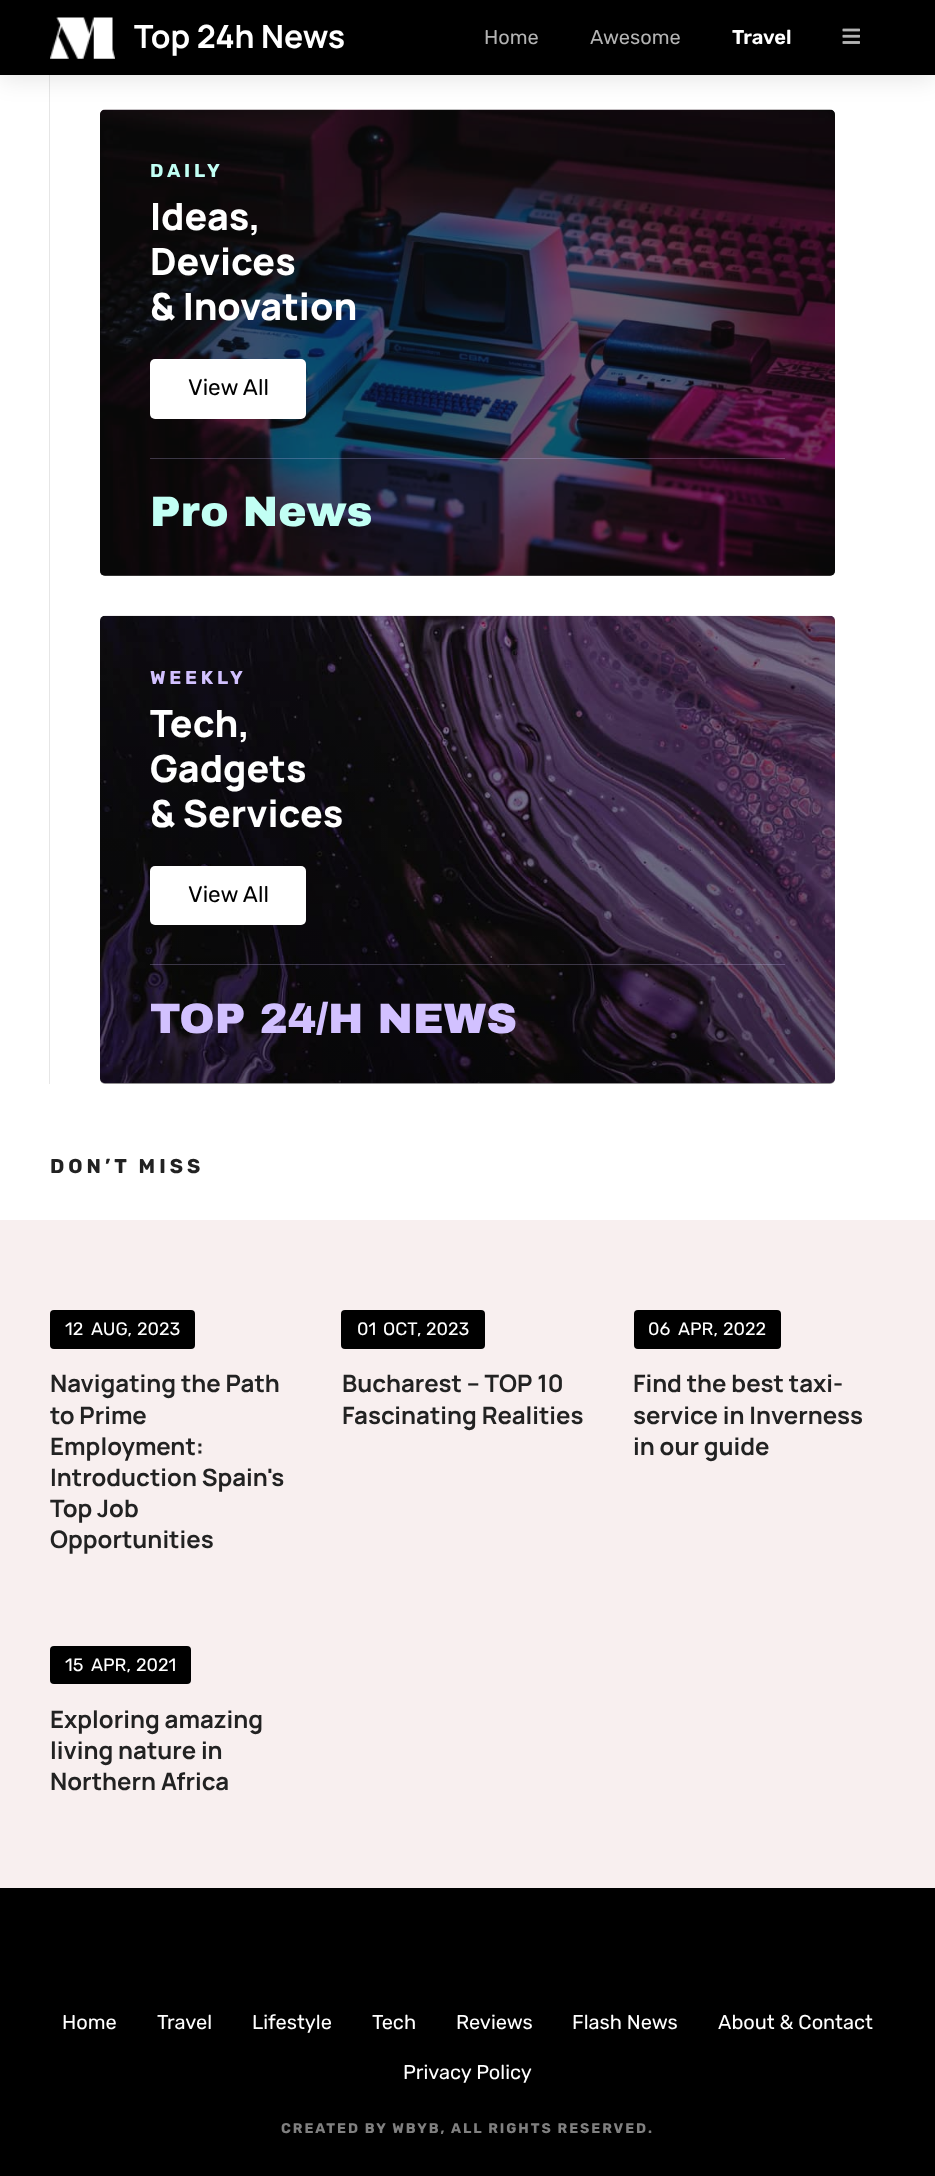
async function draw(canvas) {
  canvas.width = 935;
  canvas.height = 2176;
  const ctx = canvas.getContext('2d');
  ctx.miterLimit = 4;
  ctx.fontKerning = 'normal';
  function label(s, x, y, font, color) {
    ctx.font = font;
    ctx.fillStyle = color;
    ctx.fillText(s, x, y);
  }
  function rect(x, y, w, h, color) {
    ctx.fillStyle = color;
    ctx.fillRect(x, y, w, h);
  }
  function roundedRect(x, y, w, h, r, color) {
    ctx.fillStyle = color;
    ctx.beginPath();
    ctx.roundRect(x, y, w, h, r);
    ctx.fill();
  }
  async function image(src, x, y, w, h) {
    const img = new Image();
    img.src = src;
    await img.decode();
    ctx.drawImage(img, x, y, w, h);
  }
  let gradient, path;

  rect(0, 0, 935, 2176, '#fff');
  ctx.fillStyle = '#e6e6e6';
  path = new Path2D('M49-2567V1084H884H50V-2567Z');
  ctx.fill(path);
  await image('assets/img3.png', 100, 109, 735, 467);
  roundedRect(100, 110, 735, 466, 5, '#0d0d0d99');
  ctx.fillStyle = '#0000001a';
  ctx.filter = 'blur(12.5px)';
  ctx.beginPath();
  ctx.rect(0, 4, 935, 75);
  ctx.fill();
  ctx.filter = 'none';
  rect(0, 0, 935, 75, '#000');
  await image('assets/img1.png', 50, 17, 65, 42);
  label('Top 24h News', 134, 48, 'bold 32px Manrope', '#fff');
  label('Home', 484, 44, '20px Rubik', '#b3b3b3');
  label('Awesome', 590, 44, '20px Rubik', '#b3b3b3');
  label('Travel', 732, 44, '600 20px Rubik', '#fff');
  await image('assets/img2.png', 842, 28, 18, 16);
  ctx.letterSpacing = '3.75px';
  label('DAILY', 150, 177, 'bold 18.75px Rubik', '#c2fff4');
  ctx.letterSpacing = '0px';
  label('Ideas,', 150, 230, '800 37.5px Manrope', '#fff');
  label('Devices', 150, 275, '800 37.5px Manrope', '#fff');
  label('& Inovation', 150, 320, '800 37.5px Manrope', '#fff');
  roundedRect(150, 359, 156, 60, 5, '#fff');
  label('View All', 188, 395, '22.5px Rubik', '#000');
  rect(150, 458, 635, 1, '#d2c2ff40');
  label('Pro News', 150, 526, '900 42.5px Archivo Black', '#c2fff4');
  await image('assets/img4.png', 100, 615, 735, 469);
  gradient = ctx.createLinearGradient(468, 1084, 468, 616);
  gradient.addColorStop(0, '#00000066');
  gradient.addColorStop(1, '#00000033');
  ctx.fillStyle = gradient;
  ctx.beginPath();
  ctx.roundRect(100, 616, 735, 468, 5);
  ctx.fill();
  ctx.letterSpacing = '3.75px';
  label('WEEKLY', 150, 684, 'bold 18.75px Rubik', '#d2c1ff');
  ctx.letterSpacing = '0px';
  label('Tech,', 150, 737, '800 37.5px Manrope', '#fff');
  label('Gadgets', 150, 782, '800 37.5px Manrope', '#fff');
  label('& Services', 150, 827, '800 37.5px Manrope', '#fff');
  roundedRect(150, 866, 156, 59, 5, '#fff');
  label('View All', 188, 902, '22.5px Rubik', '#000');
  rect(150, 964, 635, 1, '#d2c2ff40');
  label('TOP 24/H NEWS', 150, 1033, '900 42.5px Archivo Black', '#d2c1ff');
  ctx.letterSpacing = '4px';
  label('DON’T MISS', 50, 1173, 'bold 20px Rubik', '#222');
  rect(0, 1220, 935, 668, '#f8efef');
  roundedRect(50, 1310, 145, 39, 4, '#000');
  ctx.letterSpacing = '0px';
  label('12', 65, 1335, '18px Rubik', '#fff');
  label('AUG,', 91, 1335, '18px Rubik', '#fff');
  label('2023', 137, 1335, '18px Rubik', '#fff');
  label('Navigating the Path', 50, 1392, 'bold 24px Manrope', '#222');
  label('to Prime', 50, 1424, 'bold 24px Manrope', '#222');
  label('Employment:', 50, 1455, 'bold 24px Manrope', '#222');
  label('Introduction Spain\'s', 50, 1486, 'bold 24px Manrope', '#222');
  label('Top Job', 50, 1517, 'bold 24px Manrope', '#222');
  label('Opportunities', 50, 1548, 'bold 24px Manrope', '#222');
  roundedRect(341, 1310, 144, 39, 4, '#000');
  label('01', 357, 1335, '18px Rubik', '#fff');
  label('OCT', 383, 1335, '18px Rubik', '#fff');
  label(',', 417, 1335, '18px Rubik', '#fff');
  label('2023', 426, 1335, '18px Rubik', '#fff');
  label('Bucharest – TOP 10', 342, 1392, 'bold 24px Manrope', '#222');
  label('Fascinating Realities', 342, 1424, 'bold 24px Manrope', '#222');
  roundedRect(634, 1310, 147, 39, 4, '#000');
  label('06', 648, 1335, '18px Rubik', '#fff');
  label('APR,', 678, 1335, '18px Rubik', '#fff');
  label('2022', 723, 1335, '18px Rubik', '#fff');
  label('Find the best taxi-', 633, 1392, 'bold 24px Manrope', '#222');
  label('service in Inverness', 633, 1424, 'bold 24px Manrope', '#222');
  label('in our guide', 633, 1455, 'bold 24px Manrope', '#222');
  roundedRect(50, 1646, 141, 38, 4, '#000');
  label('15', 65, 1671, '18px Rubik', '#fff');
  label('APR,', 91, 1671, '18px Rubik', '#fff');
  label('2021', 136, 1671, '18px Rubik', '#fff');
  label('Exploring amazing', 50, 1728, 'bold 24px Manrope', '#222');
  label('living nature in', 50, 1759, 'bold 24px Manrope', '#222');
  label('Northern Africa', 50, 1790, 'bold 24px Manrope', '#222');
  rect(0, 1888, 935, 288, '#000');
  label('Home', 62, 2029, '20px Rubik', '#fff');
  label('Travel', 157, 2029, '20px Rubik', '#fff');
  label('Lifestyle', 252, 2029, '20px Rubik', '#fff');
  label('Tech', 372, 2029, '20px Rubik', '#fff');
  label('Reviews', 456, 2029, '20px Rubik', '#fff');
  label('Flash News', 572, 2029, '20px Rubik', '#fff');
  label('About & Contact', 718, 2029, '20px Rubik', '#fff');
  label('Privacy Policy', 403, 2079, '20px Rubik', '#fff');
  ctx.letterSpacing = '1.95px';
  label('CREATED BY WBYB, ALL RIGHTS RESERVED.', 281, 2133, 'bold 14px Rubik', '#808080');
}

draw(document.querySelector('canvas'));
